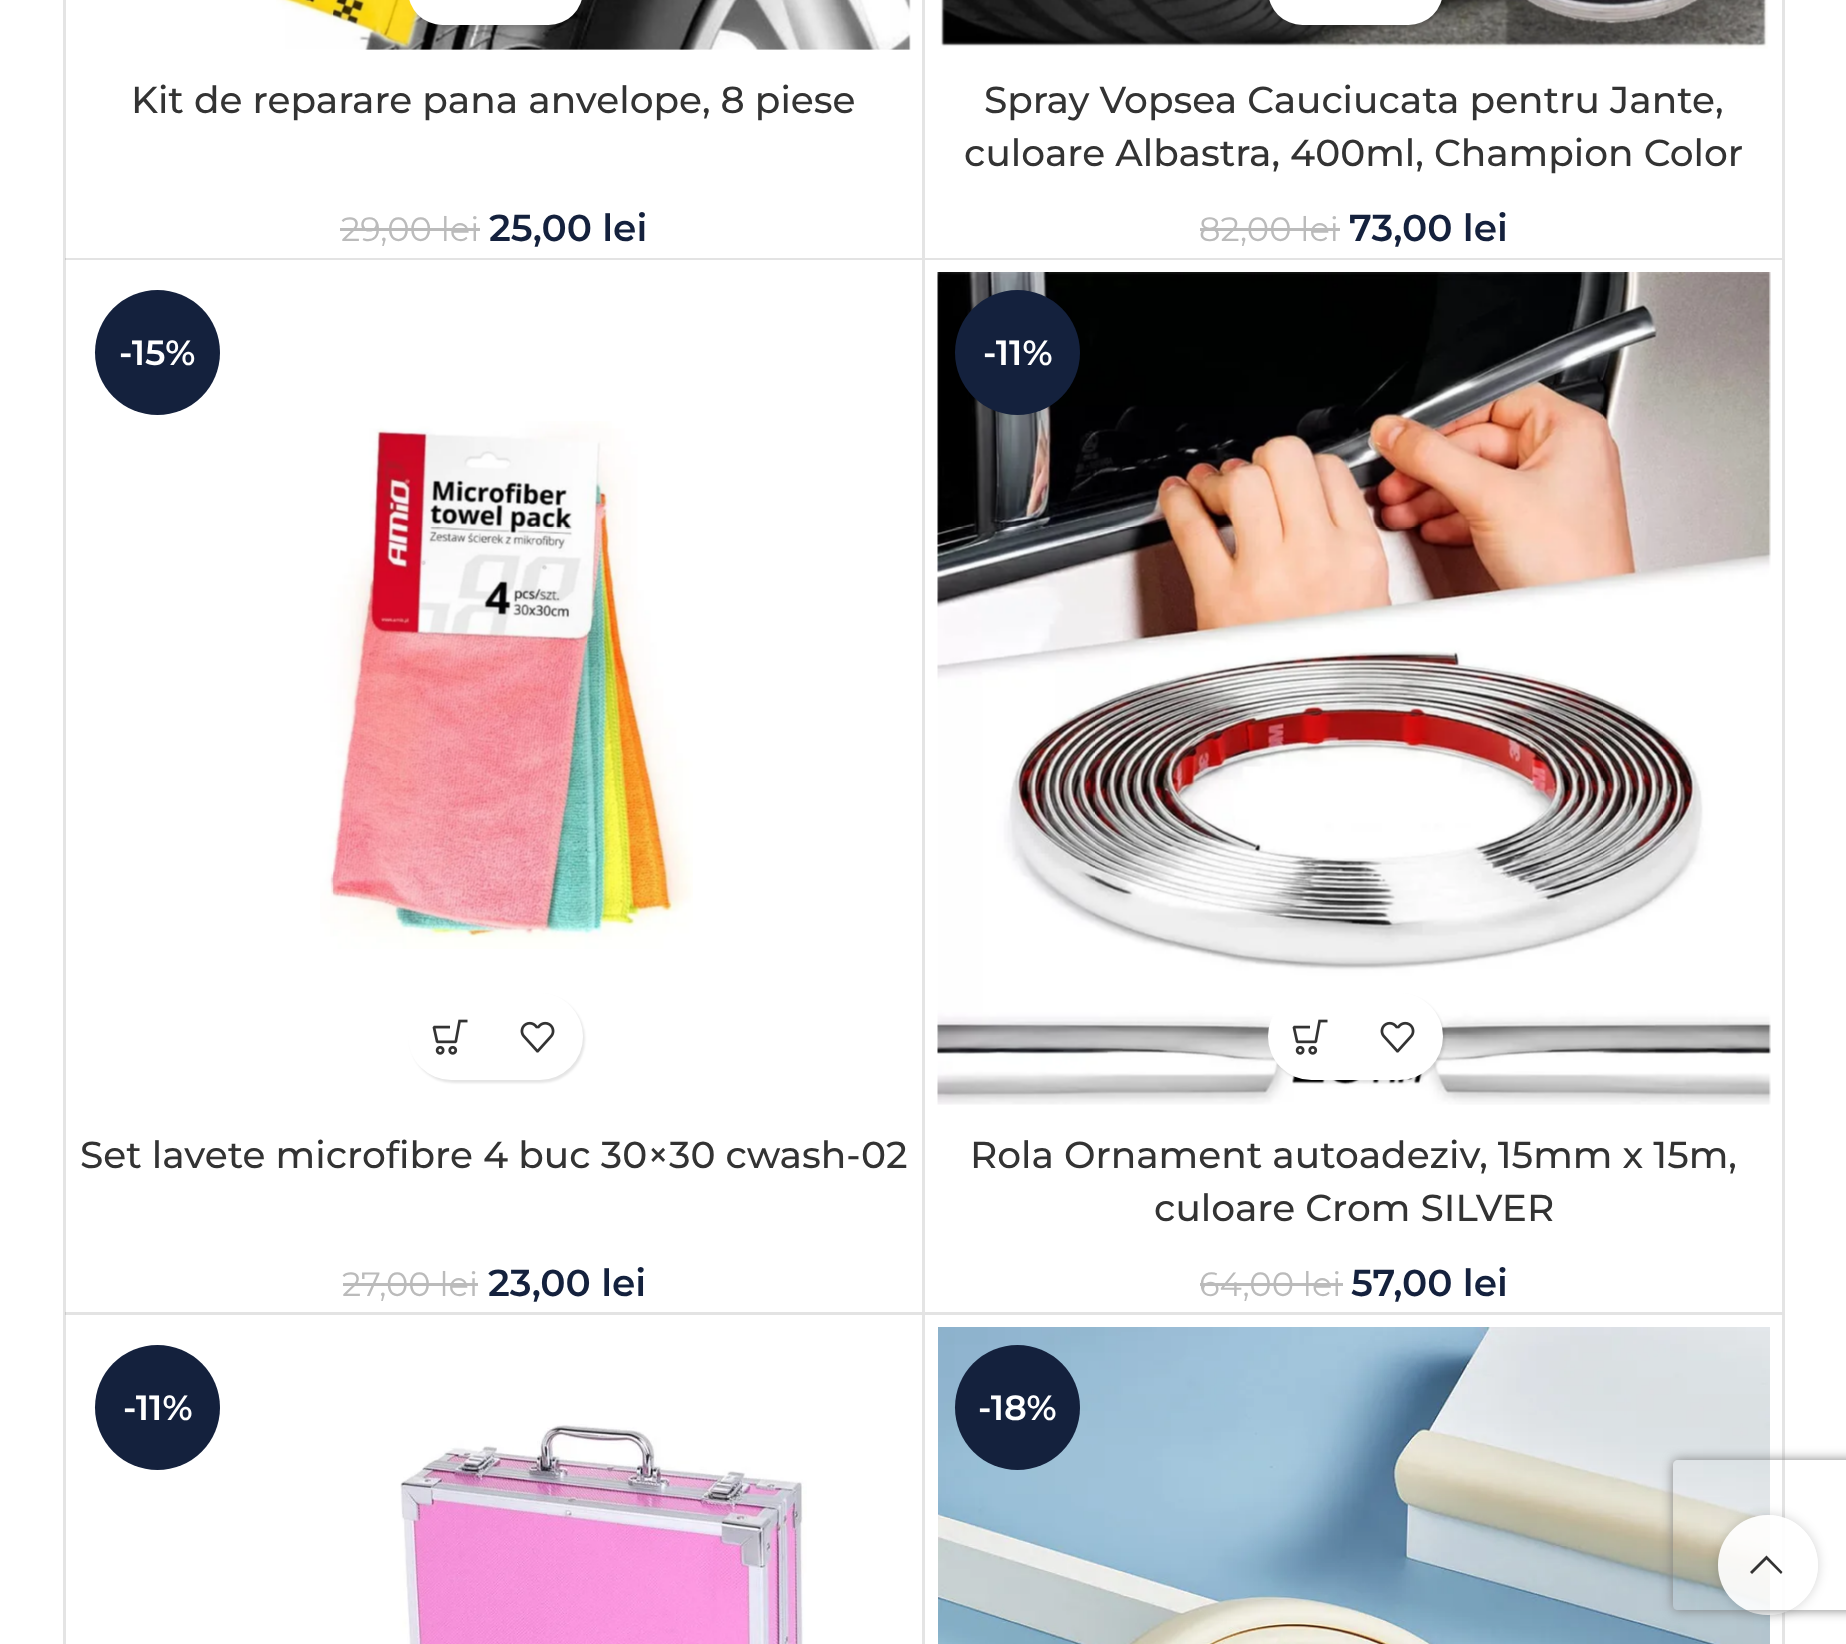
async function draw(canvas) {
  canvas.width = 1846;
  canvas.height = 1644;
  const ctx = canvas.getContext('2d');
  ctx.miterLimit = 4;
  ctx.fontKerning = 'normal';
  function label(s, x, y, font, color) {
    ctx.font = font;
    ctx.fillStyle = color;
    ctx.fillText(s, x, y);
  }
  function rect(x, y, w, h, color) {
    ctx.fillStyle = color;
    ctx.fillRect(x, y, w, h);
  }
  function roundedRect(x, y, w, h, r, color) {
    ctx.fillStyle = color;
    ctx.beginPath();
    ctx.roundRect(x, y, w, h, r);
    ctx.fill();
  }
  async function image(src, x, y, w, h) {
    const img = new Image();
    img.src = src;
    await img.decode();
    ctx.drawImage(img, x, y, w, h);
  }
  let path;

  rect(0, 0, 1846, 1644, '#fff');
  rect(63, 0, 3, 1644, '#e4e4e4');
  path = new Path2D('M925-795V260L922 258V-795Z');
  ctx.fill(path);
  ctx.fillStyle = '#0000001c';
  path = new Path2D('M925 260H65V258H922Z');
  ctx.fill(path);
  await image('assets/img1.png', 276, 0, 635, 50);
  ctx.fillStyle = '#0000001a';
  ctx.filter = 'blur(1px)';
  ctx.beginPath();
  ctx.roundRect(410, -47, 175, 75, 44);
  ctx.fill();
  ctx.filter = 'none';
  roundedRect(408, -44, 175, 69, 43.5, '#fff');
  label('Kit de reparare pana anvelope, 8 piese', 131, 113, '500 37.5px Montserrat', '#333');
  label('29,00 lei', 341, 241, '33.75px Montserrat', '#bbb');
  rect(340, 228, 140, 3, '#bbb');
  label('25,00 lei', 489, 241, '600 37.5px Montserrat', '#14213d');
  ctx.fillStyle = '#e4e4e4';
  path = new Path2D('M1785-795V260L1782 258V-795Z');
  ctx.fill(path);
  ctx.fillStyle = '#0000001c';
  path = new Path2D('M1785 260H925V258H1782Z');
  ctx.fill(path);
  await image('assets/img2.png', 940, 0, 828, 49);
  ctx.fillStyle = '#0000001a';
  ctx.filter = 'blur(1px)';
  ctx.beginPath();
  ctx.roundRect(1270, -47, 175, 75, 44);
  ctx.fill();
  ctx.filter = 'none';
  roundedRect(1268, -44, 175, 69, 43.5, '#fff');
  label('Spray Vopsea Cauciucata pentru Jante,', 984, 113, '500 37.5px Montserrat', '#333');
  label('culoare Albastra, 400ml, Champion Color', 964, 166, '500 37.5px Montserrat', '#333');
  label('82,00 lei', 1199, 241, '33.75px Montserrat', '#bbb');
  rect(1200, 228, 140, 3, '#bbb');
  label('73,00 lei', 1349, 241, '600 37.5px Montserrat', '#14213d');
  ctx.fillStyle = '#e4e4e4';
  path = new Path2D('M925 260V1315L922 1312V260Z');
  ctx.fill(path);
  ctx.fillStyle = '#0000001c';
  path = new Path2D('M925 1315H65V1312H922Z');
  ctx.fill(path);
  ctx.fillStyle = '#14213d';
  ctx.beginPath();
  ctx.arc(157.5, 352.5, 62.5, 0, 2 * Math.PI);
  ctx.fill();
  label('-15%', 119, 365, '600 35px Montserrat', '#fff');
  await image('assets/img3.png', 320, 421, 373, 528);
  ctx.fillStyle = '#0000001a';
  ctx.filter = 'blur(1px)';
  ctx.beginPath();
  ctx.roundRect(410, 995, 175, 88, 44);
  ctx.fill();
  ctx.filter = 'none';
  roundedRect(408, 993, 175, 87, 43.5, '#fff');
  await image('assets/img4.png', 432, 1019, 36, 36);
  await image('assets/img5.png', 520, 1021, 35, 32);
  label('Set lavete microfibre 4 buc 30×30 cwash-02', 80, 1168, '500 37.5px Montserrat', '#333');
  label('27,00 lei', 342, 1296, '33.75px Montserrat', '#bbb');
  rect(343, 1283, 135, 3, '#bbb');
  label('23,00 lei', 488, 1296, '600 37.5px Montserrat', '#14213d');
  ctx.fillStyle = '#e4e4e4';
  path = new Path2D('M1785 260V1315L1782 1312V260Z');
  ctx.fill(path);
  ctx.fillStyle = '#0000001c';
  path = new Path2D('M1785 1315H925V1312H1782Z');
  ctx.fill(path);
  await image('assets/img6.png', 937, 272, 834, 833);
  ctx.fillStyle = '#14213d';
  ctx.beginPath();
  ctx.arc(1017.5, 352.5, 62.5, 0, 2 * Math.PI);
  ctx.fill();
  label('-11%', 983, 365, '600 35px Montserrat', '#fff');
  ctx.fillStyle = '#0000001a';
  ctx.filter = 'blur(1px)';
  ctx.beginPath();
  ctx.roundRect(1270, 995, 175, 88, 44);
  ctx.fill();
  ctx.filter = 'none';
  roundedRect(1268, 993, 175, 87, 43.5, '#fff');
  await image('assets/img4.png', 1292, 1019, 36, 36);
  await image('assets/img5.png', 1380, 1021, 35, 32);
  label('Rola Ornament autoadeziv, 15mm x 15m,', 970, 1168, '500 37.5px Montserrat', '#333');
  label('culoare Crom SILVER', 1154, 1221, '500 37.5px Montserrat', '#333');
  label('64,00 lei', 1199, 1296, '33.75px Montserrat', '#bbb');
  rect(1200, 1283, 143, 3, '#bbb');
  label('57,00 lei', 1351, 1296, '600 37.5px Montserrat', '#14213d');
  ctx.fillStyle = '#e4e4e4';
  path = new Path2D('M925 1315V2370L922 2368V1315Z');
  ctx.fill(path);
  ctx.fillStyle = '#14213d';
  ctx.beginPath();
  ctx.arc(157.5, 1407.5, 62.5, 0, 2 * Math.PI);
  ctx.fill();
  label('-11%', 123, 1420, '600 35px Montserrat', '#fff');
  await image('assets/img7.png', 400, 1424, 407, 220);
  ctx.fillStyle = '#e4e4e4';
  path = new Path2D('M1785 1315V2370L1782 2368V1315Z');
  ctx.fill(path);
  await image('assets/img8.png', 938, 1327, 832, 317);
  ctx.fillStyle = '#14213d';
  ctx.beginPath();
  ctx.arc(1017.5, 1407.5, 62.5, 0, 2 * Math.PI);
  ctx.fill();
  label('-18%', 978, 1420, '600 35px Montserrat', '#fff');
  ctx.save();
  path = new Path2D('M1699 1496H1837V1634H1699ZM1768 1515C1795.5 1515 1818 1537.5 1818 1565C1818 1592.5 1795.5 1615 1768 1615C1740.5 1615 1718 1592.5 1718 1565C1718 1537.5 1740.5 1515 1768 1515Z');
  ctx.clip(path, 'evenodd');
  ctx.fillStyle = '#0000002b';
  ctx.filter = 'blur(6px)';
  ctx.beginPath();
  ctx.roundRect(1718, 1515, 100, 100, 50);
  ctx.fill();
  ctx.filter = 'none';
  ctx.restore();
  ctx.fillStyle = '#ffffffe6';
  ctx.beginPath();
  ctx.arc(1768, 1565, 50, 0, 2 * Math.PI);
  ctx.fill();
  ctx.fillStyle = '#333';
  path = new Path2D('M1781 1574L1782.5 1572L1766.5 1555.5L1750 1572L1752 1574L1766.5 1559.5Z');
  ctx.fill(path);
  ctx.save();
  path = new Path2D('M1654 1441H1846V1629H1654ZM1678 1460H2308C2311 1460 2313 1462 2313 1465V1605C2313 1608 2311 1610 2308 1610H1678C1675 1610 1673 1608 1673 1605V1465C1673 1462 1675 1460 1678 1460Z');
  ctx.clip(path, 'evenodd');
  ctx.fillStyle = '#808080';
  ctx.filter = 'blur(6px)';
  ctx.beginPath();
  ctx.roundRect(1673, 1460, 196, 150, 5);
  ctx.fill();
  ctx.filter = 'none';
  ctx.restore();
}

draw(document.querySelector('canvas'));
